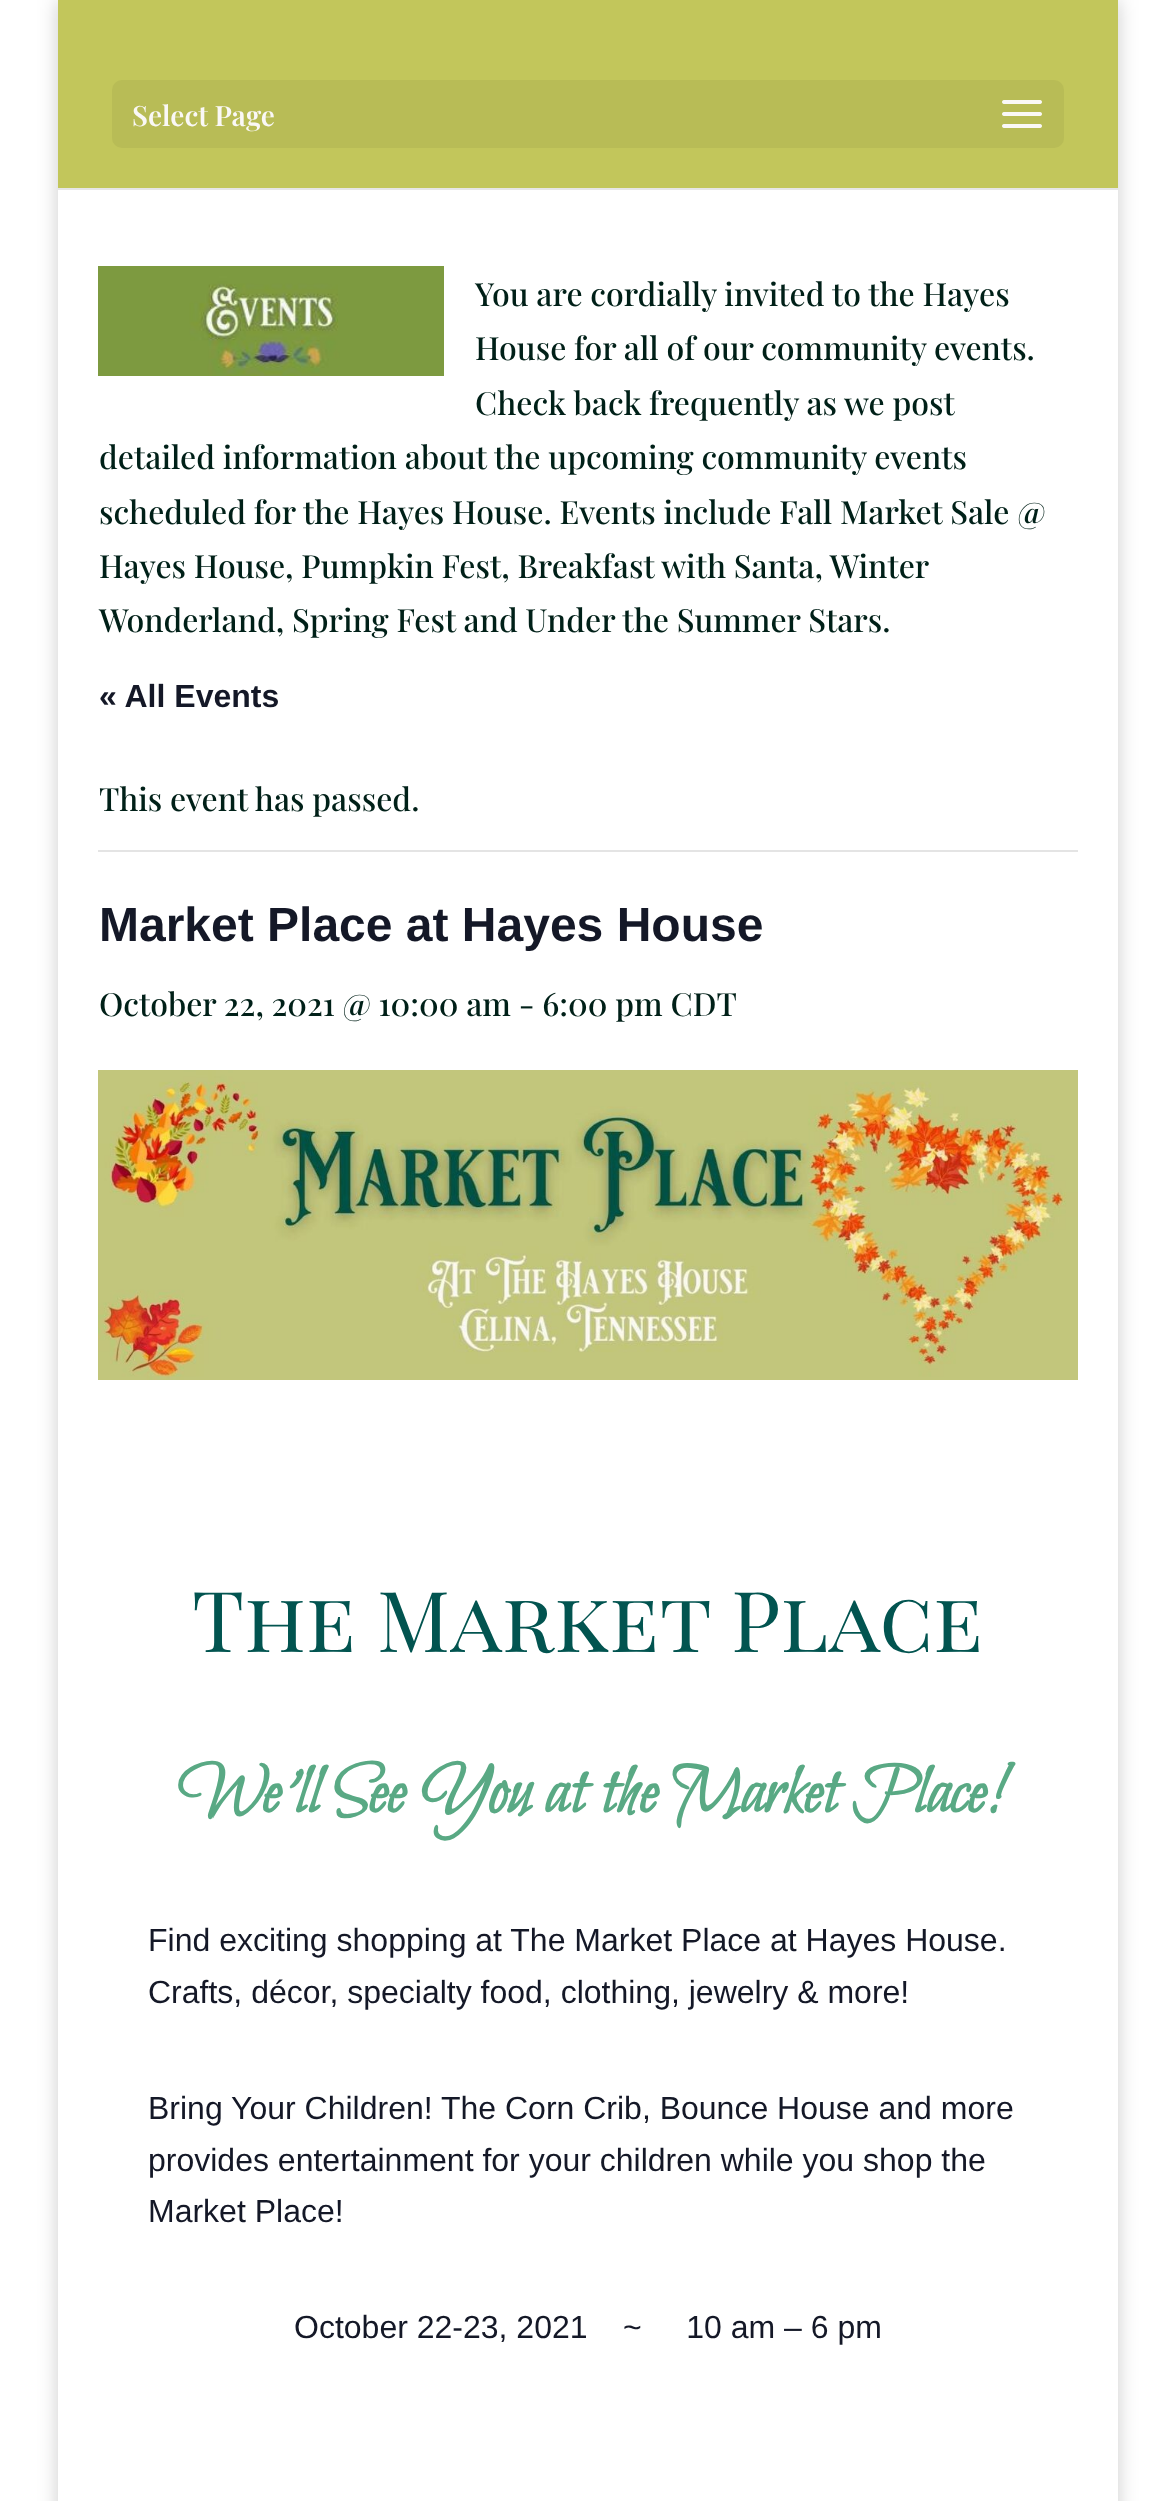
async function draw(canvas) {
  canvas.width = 1175;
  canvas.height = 2501;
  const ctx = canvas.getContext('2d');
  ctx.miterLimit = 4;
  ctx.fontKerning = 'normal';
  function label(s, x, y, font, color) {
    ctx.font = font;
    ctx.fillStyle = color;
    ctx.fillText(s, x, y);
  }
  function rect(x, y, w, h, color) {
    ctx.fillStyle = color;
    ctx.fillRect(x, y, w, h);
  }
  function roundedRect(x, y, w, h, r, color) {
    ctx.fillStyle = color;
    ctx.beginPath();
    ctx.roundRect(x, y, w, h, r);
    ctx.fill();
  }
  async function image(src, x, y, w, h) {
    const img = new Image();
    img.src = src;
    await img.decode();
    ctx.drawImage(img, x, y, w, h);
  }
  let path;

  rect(0, 0, 1175, 2501, '#fff');
  ctx.save();
  path = new Path2D('M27 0H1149V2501H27ZM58 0H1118V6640H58Z');
  ctx.clip(path, 'evenodd');
  ctx.fillStyle = '#00000033';
  ctx.filter = 'blur(10px)';
  ctx.beginPath();
  ctx.rect(58, 0, 1060, 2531);
  ctx.fill();
  ctx.filter = 'none';
  ctx.restore();
  rect(58, 188, 1060, 2, '#e6e6e6');
  rect(58, 0, 1060, 188, '#c2c65b');
  roundedRect(112, 80, 952, 68, 10, '#b8bc56');
  label('Select Page', 132, 126, '600 28px Playfair Display', '#faf8f6');
  await image('assets/img1.png', 1002, 100, 40, 28);
  await image('assets/img2.png', 98, 266, 346, 110);
  label('You are cordially invited to the Hayes', 475, 306, '500 32px Playfair Display', '#002018');
  label('House for all of our community events.', 475, 360, '500 32px Playfair Display', '#002018');
  label('Check back frequently as we post', 475, 415, '500 32px Playfair Display', '#002018');
  label('detailed information about the upcoming community events', 99, 469, '500 32px Playfair Display', '#002018');
  label('scheduled for the Hayes House. Events include Fall Market Sale @', 99, 524, '500 32px Playfair Display', '#002018');
  label('Hayes House, Pumpkin Fest, Breakfast with Santa, Winter', 99, 578, '500 32px Playfair Display', '#002018');
  label('Wonderland, Spring Fest and Under the Summer Stars.', 99, 632, '500 32px Playfair Display', '#002018');
  label('« All Events', 99, 707, 'bold 32px Liberation Sans', '#141827');
  rect(98, 850, 980, 2, '#e4e4e4');
  label('This event has passed.', 99, 811, '500 32px Playfair Display', '#002018');
  label('Market Place at Hayes House', 99, 941, 'bold 48px Liberation Sans', '#141827');
  label('October 22, 2021 @ 10:00 am - 6:00 pm CDT', 99, 1016, '500 32px Playfair Display', '#002018');
  await image('assets/img3.png', 98, 1070, 980, 310);
  label('The Market Place', 192, 1652, '84px Playfair Display SC', '#025450');
  label('We’ll See You at the Market Place!', 177, 1812, 'bold 72px Bilbo Swash Caps', '#59a984');
  label('Find exciting shopping at The Market Place at Hayes House.', 148, 1951, '32px Liberation Sans', '#141827');
  label('Crafts, décor, specialty food, clothing, jewelry & more!', 148, 2003, '32px Liberation Sans', '#141827');
  label('Bring Your Children! The Corn Crib, Bounce House and more', 148, 2119, '32px Liberation Sans', '#141827');
  label('provides entertainment for your children while you shop the', 148, 2171, '32px Liberation Sans', '#141827');
  label('Market Place!', 148, 2222, '32px Liberation Sans', '#141827');
  label('October 22-23, 2021    ~     10 am – 6 pm', 294, 2338, '32px Liberation Sans', '#141827');
}

draw(document.querySelector('canvas'));
